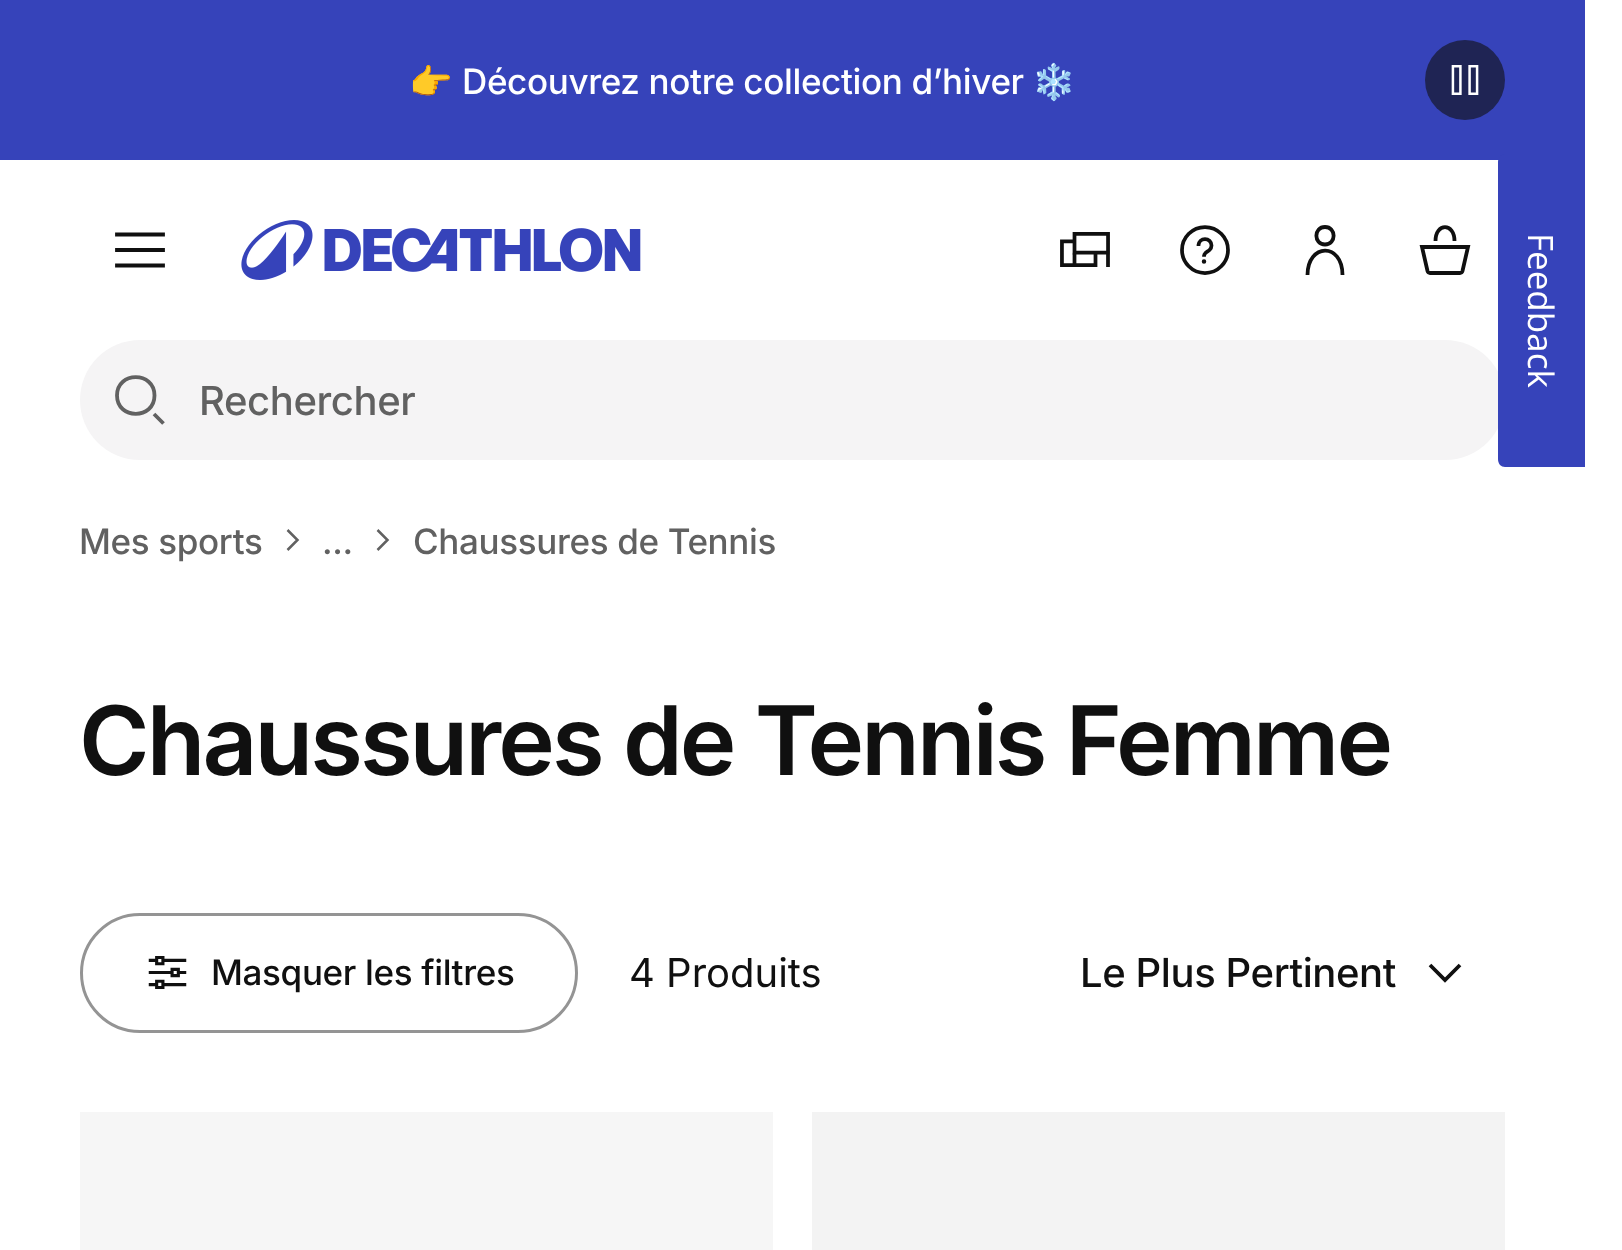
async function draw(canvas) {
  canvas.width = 1622;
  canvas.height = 1250;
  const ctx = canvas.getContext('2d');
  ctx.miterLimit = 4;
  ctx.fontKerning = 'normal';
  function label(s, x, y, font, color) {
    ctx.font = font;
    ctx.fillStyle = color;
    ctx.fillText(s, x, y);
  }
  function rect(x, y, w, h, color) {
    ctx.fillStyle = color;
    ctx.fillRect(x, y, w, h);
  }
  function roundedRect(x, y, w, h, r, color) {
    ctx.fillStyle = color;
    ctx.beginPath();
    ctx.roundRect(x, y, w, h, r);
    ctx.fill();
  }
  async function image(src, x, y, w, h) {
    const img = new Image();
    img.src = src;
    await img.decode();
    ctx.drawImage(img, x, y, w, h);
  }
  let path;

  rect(0, 0, 1622, 1250, '#fff');
  rect(0, 0, 1585, 160, '#3643ba');
  ctx.letterSpacing = '-0.35px';
  label('👉', 409, 94, '35px Noto Color Emoji', '#fff');
  label('Découvrez notre collection d’hiver', 462, 94, '500 35px Inter', '#fff');
  label('❄️', 1032, 94, '35px Noto Color Emoji', '#fff');
  ctx.fillStyle = '#1f2454';
  ctx.beginPath();
  ctx.arc(1465, 80, 40, 0, 2 * Math.PI);
  ctx.fill();
  await image('assets/img1.png', 1451, 65, 28, 30);
  roundedRect(80, 340, 1425, 120, 60, '#f5f4f5');
  ctx.fillStyle = '#3643ba';
  path = new Path2D('M1585 154V467H1505C1501 467 1498 464 1498 459V162C1498 158 1501 154 1505 154Z');
  ctx.fill(path);
  ctx.letterSpacing = '0px';
  ctx.font = '35px Open Sans';
  ctx.fillStyle = '#fff';
  ctx.save();
  ctx.translate(1528, 233);
  ctx.rotate(90 * Math.PI / 180);
  ctx.fillText('Feedback', 0, 0);
  ctx.restore();
  path = new Path2D('M117 250H163M117 234.5H163M117 265.5H163');
  ctx.strokeStyle = '#101010';
  ctx.lineWidth = 3.8;
  ctx.lineCap = 'square';
  ctx.stroke(path);
  await image('assets/img2.png', 241, 220, 400, 60);
  await image('assets/img3.png', 1060, 232, 50, 35);
  await image('assets/img4.png', 1180, 225, 50, 50);
  path = new Path2D('M1307.5 275C1307.5 243 1342.5 242 1342.5 275M1325 227C1313.5 227 1313.5 244.5 1325 244.5C1336.5 244.5 1336.5 227 1325 227Z');
  ctx.lineCap = 'butt';
  ctx.stroke(path);
  path = new Path2D('M1435.5 241C1435.5 222.5 1454.5 222.5 1454.5 241M1427.5 271C1428 272.5 1429 273 1430 273H1460C1461 273 1462 272.5 1462.5 271L1468 247H1422Z');
  ctx.stroke(path);
  path = new Path2D('M163.5 423.5L154 414M154.5 395.5C154.5 420 117 420 117 395.5C117 371 154.5 371 154.5 395.5Z');
  ctx.strokeStyle = '#616161';
  ctx.stroke(path);
  ctx.letterSpacing = '-0.4px';
  label('Rechercher', 199, 415, '500 40px Inter', '#616161');
  ctx.letterSpacing = '-0.35px';
  label('Mes sports', 79, 554, '500 35px Inter', '#616161');
  await image('assets/img5.png', 286, 529, 14, 22);
  await image('assets/img5.png', 376, 529, 14, 22);
  label('...', 322, 554, '500 35px Inter', '#616161');
  label('Chaussures de Tennis', 413, 554, '500 35px Inter', '#616161');
  ctx.letterSpacing = '-2.9px';
  label('Chaussures de Tennis Femme', 79, 775, '600 95.75px Inter', '#101010');
  ctx.beginPath();
  ctx.roundRect(81.5, 914.5, 495, 117, 58.5);
  ctx.strokeStyle = '#949494';
  ctx.lineWidth = 3;
  ctx.stroke();
  await image('assets/img6.png', 148, 956, 39, 33);
  ctx.letterSpacing = '-0.35px';
  label('Masquer les filtres', 211, 985, '500 35px Inter', '#101010');
  ctx.letterSpacing = '0px';
  label('4 Produits', 629, 987, '40px Inter', '#101010');
  ctx.letterSpacing = '-0.4px';
  label('Le Plus Pertinent', 1080, 987, '500 40px Inter', '#101010');
  await image('assets/img7.png', 1428, 963, 34, 20);
  rect(80, 1112, 693, 138, '#f6f6f6');
  rect(812, 1112, 693, 138, '#f3f3f3');
}

draw(document.querySelector('canvas'));
